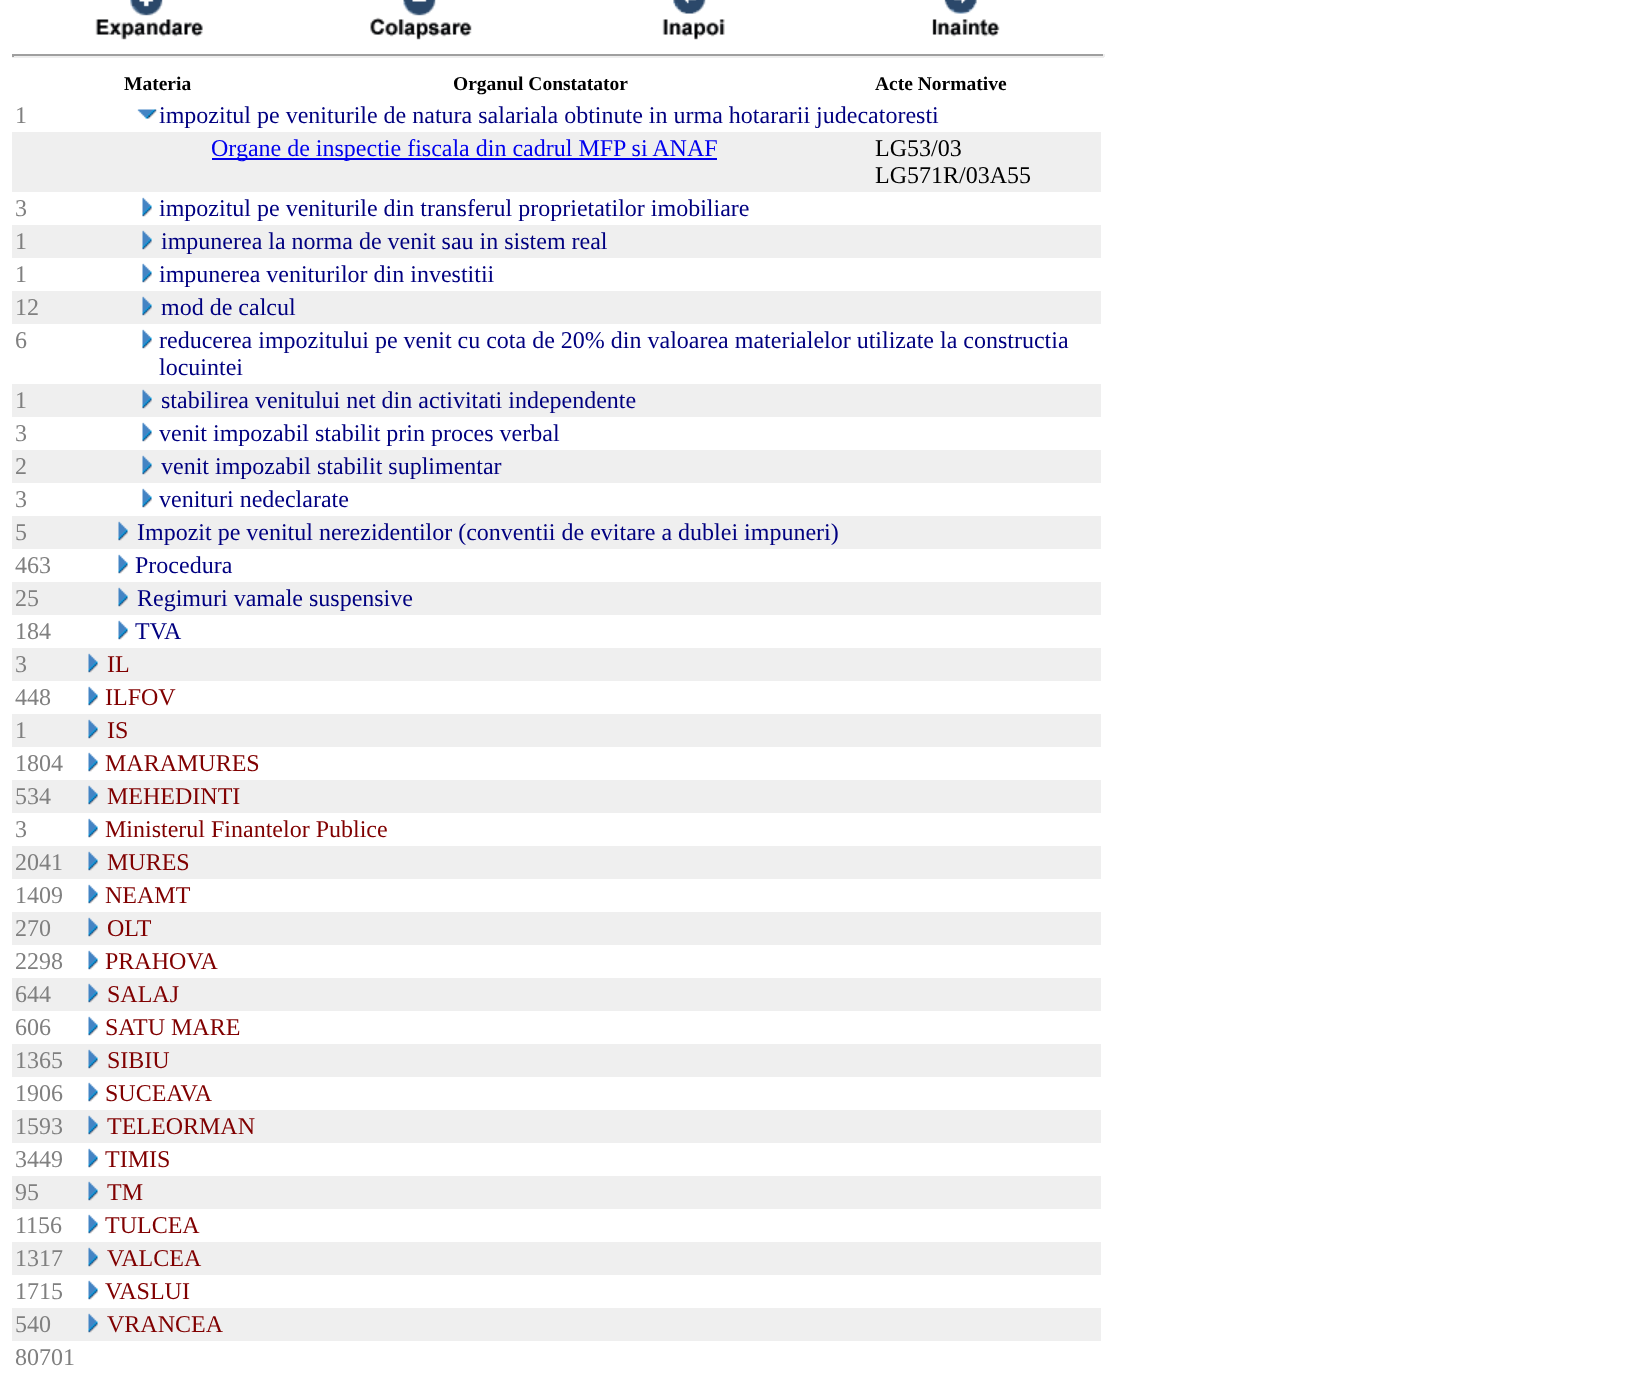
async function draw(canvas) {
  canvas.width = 1649;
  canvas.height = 1386;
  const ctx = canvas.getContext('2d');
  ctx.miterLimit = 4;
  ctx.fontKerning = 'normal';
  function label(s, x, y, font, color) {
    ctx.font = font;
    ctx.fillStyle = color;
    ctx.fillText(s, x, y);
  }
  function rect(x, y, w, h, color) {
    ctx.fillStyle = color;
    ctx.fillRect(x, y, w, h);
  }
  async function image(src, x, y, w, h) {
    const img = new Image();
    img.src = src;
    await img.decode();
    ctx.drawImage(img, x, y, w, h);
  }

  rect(0, 0, 1649, 1386, '#fff');
  await image('assets/img1.png', 95, 0, 108, 40);
  await image('assets/img2.png', 370, 0, 102, 40);
  await image('assets/img3.png', 662, 0, 63, 40);
  await image('assets/img4.png', 932, 0, 68, 37);
  rect(12, 54, 1092, 2, '#9f9f9f');
  rect(1103, 54, 2, 3, '#eee');
  rect(12, 56, 1092, 2, '#eee');
  rect(12, 54, 2, 3, '#9f9f9f');
  label('Materia', 124, 90, 'bold 19.5px Liberation Serif', '#000');
  label('Organul Constatator', 453, 90, 'bold 19.5px Liberation Serif', '#000');
  label('Acte Normative', 875, 90, 'bold 19.5px Liberation Serif', '#000');
  label('1', 15, 123, '24px Liberation Serif', '#808080');
  await image('assets/img5.png', 137, 109, 20, 10);
  label('impozitul pe veniturile de natura salariala obtinute in urma hotararii judecatoresti', 159, 123, '24px Liberation Serif', '#000080');
  rect(12, 132, 1089, 60, '#efefef');
  rect(212, 158, 505, 2, '#00e');
  label('Organe de inspectie fiscala din cadrul MFP si ANAF', 211, 156, '24px Liberation Serif', '#00e');
  label('LG53/03', 875, 156, '24px Liberation Serif', '#000');
  label('LG571R/03A55', 875, 183, '24px Liberation Serif', '#000');
  label('3', 15, 216, '24px Liberation Serif', '#808080');
  await image('assets/img6.png', 142, 197, 10, 20);
  label('impozitul pe veniturile din transferul proprietatilor imobiliare', 159, 216, '24px Liberation Serif', '#000080');
  rect(12, 225, 1089, 33, '#efefef');
  label('1', 15, 249, '24px Liberation Serif', '#808080');
  await image('assets/img7.png', 142, 230, 10, 20);
  label('impunerea la norma de venit sau in sistem real', 161, 249, '24px Liberation Serif', '#000080');
  label('1', 15, 282, '24px Liberation Serif', '#808080');
  await image('assets/img6.png', 142, 263, 10, 20);
  label('impunerea veniturilor din investitii', 159, 282, '24px Liberation Serif', '#000080');
  rect(12, 291, 1089, 33, '#efefef');
  label('12', 15, 315, '24px Liberation Serif', '#808080');
  await image('assets/img7.png', 142, 296, 10, 20);
  label('mod de calcul', 161, 315, '24px Liberation Serif', '#000080');
  label('6', 15, 348, '24px Liberation Serif', '#808080');
  await image('assets/img6.png', 142, 329, 10, 20);
  label('reducerea impozitului pe venit cu cota de 20% din valoarea materialelor utilizate la constructia', 159, 348, '24px Liberation Serif', '#000080');
  label('locuintei', 159, 375, '24px Liberation Serif', '#000080');
  rect(12, 384, 1089, 33, '#efefef');
  label('1', 15, 408, '24px Liberation Serif', '#808080');
  await image('assets/img7.png', 142, 389, 10, 20);
  label('stabilirea venitului net din activitati independente', 161, 408, '24px Liberation Serif', '#000080');
  label('3', 15, 441, '24px Liberation Serif', '#808080');
  await image('assets/img6.png', 142, 422, 10, 20);
  label('venit impozabil stabilit prin proces verbal', 159, 441, '24px Liberation Serif', '#000080');
  rect(12, 450, 1089, 33, '#efefef');
  label('2', 15, 474, '24px Liberation Serif', '#808080');
  await image('assets/img7.png', 142, 455, 10, 20);
  label('venit impozabil stabilit suplimentar', 161, 474, '24px Liberation Serif', '#000080');
  label('3', 15, 507, '24px Liberation Serif', '#808080');
  await image('assets/img6.png', 142, 488, 10, 20);
  label('venituri nedeclarate', 159, 507, '24px Liberation Serif', '#000080');
  rect(12, 516, 1089, 33, '#efefef');
  label('5', 15, 540, '24px Liberation Serif', '#808080');
  await image('assets/img7.png', 118, 521, 10, 20);
  label('Impozit pe venitul nerezidentilor (conventii de evitare a dublei impuneri)', 137, 540, '24px Liberation Serif', '#000080');
  label('463', 15, 573, '24px Liberation Serif', '#808080');
  await image('assets/img6.png', 118, 554, 10, 20);
  label('Procedura', 135, 573, '24px Liberation Serif', '#000080');
  rect(12, 582, 1089, 33, '#efefef');
  label('25', 15, 606, '24px Liberation Serif', '#808080');
  await image('assets/img7.png', 118, 587, 10, 20);
  label('Regimuri vamale suspensive', 137, 606, '24px Liberation Serif', '#000080');
  label('184', 15, 639, '24px Liberation Serif', '#808080');
  await image('assets/img6.png', 118, 620, 10, 20);
  label('TVA', 135, 639, '24px Liberation Serif', '#000080');
  rect(12, 648, 1089, 33, '#efefef');
  label('3', 15, 672, '24px Liberation Serif', '#808080');
  await image('assets/img7.png', 88, 653, 10, 20);
  label('IL', 107, 672, '24px Liberation Serif', '#800000');
  label('448', 15, 705, '24px Liberation Serif', '#808080');
  await image('assets/img6.png', 88, 686, 10, 20);
  label('ILFOV', 105, 705, '24px Liberation Serif', '#800000');
  rect(12, 714, 1089, 33, '#efefef');
  label('1', 15, 738, '24px Liberation Serif', '#808080');
  await image('assets/img7.png', 88, 719, 10, 20);
  label('IS', 107, 738, '24px Liberation Serif', '#800000');
  label('1804', 15, 771, '24px Liberation Serif', '#808080');
  await image('assets/img6.png', 88, 752, 10, 20);
  label('MARAMURES', 105, 771, '24px Liberation Serif', '#800000');
  rect(12, 780, 1089, 33, '#efefef');
  label('534', 15, 804, '24px Liberation Serif', '#808080');
  await image('assets/img7.png', 88, 785, 10, 20);
  label('MEHEDINTI', 107, 804, '24px Liberation Serif', '#800000');
  label('3', 15, 837, '24px Liberation Serif', '#808080');
  await image('assets/img6.png', 88, 818, 10, 20);
  label('Ministerul Finantelor Publice', 105, 837, '24px Liberation Serif', '#800000');
  rect(12, 846, 1089, 33, '#efefef');
  label('2041', 15, 870, '24px Liberation Serif', '#808080');
  await image('assets/img7.png', 88, 851, 10, 20);
  label('MURES', 107, 870, '24px Liberation Serif', '#800000');
  label('1409', 15, 903, '24px Liberation Serif', '#808080');
  await image('assets/img6.png', 88, 884, 10, 20);
  label('NEAMT', 105, 903, '24px Liberation Serif', '#800000');
  rect(12, 912, 1089, 33, '#efefef');
  label('270', 15, 936, '24px Liberation Serif', '#808080');
  await image('assets/img7.png', 88, 917, 10, 20);
  label('OLT', 107, 936, '24px Liberation Serif', '#800000');
  label('2298', 15, 969, '24px Liberation Serif', '#808080');
  await image('assets/img6.png', 88, 950, 10, 20);
  label('PRAHOVA', 105, 969, '24px Liberation Serif', '#800000');
  rect(12, 978, 1089, 33, '#efefef');
  label('644', 15, 1002, '24px Liberation Serif', '#808080');
  await image('assets/img7.png', 88, 983, 10, 20);
  label('SALAJ', 107, 1002, '24px Liberation Serif', '#800000');
  label('606', 15, 1035, '24px Liberation Serif', '#808080');
  await image('assets/img6.png', 88, 1016, 10, 20);
  label('SATU MARE', 105, 1035, '24px Liberation Serif', '#800000');
  rect(12, 1044, 1089, 33, '#efefef');
  label('1365', 15, 1068, '24px Liberation Serif', '#808080');
  await image('assets/img7.png', 88, 1049, 10, 20);
  label('SIBIU', 107, 1068, '24px Liberation Serif', '#800000');
  label('1906', 15, 1101, '24px Liberation Serif', '#808080');
  await image('assets/img6.png', 88, 1082, 10, 20);
  label('SUCEAVA', 105, 1101, '24px Liberation Serif', '#800000');
  rect(12, 1110, 1089, 33, '#efefef');
  label('1593', 15, 1134, '24px Liberation Serif', '#808080');
  await image('assets/img7.png', 88, 1115, 10, 20);
  label('TELEORMAN', 107, 1134, '24px Liberation Serif', '#800000');
  label('3449', 15, 1167, '24px Liberation Serif', '#808080');
  await image('assets/img6.png', 88, 1148, 10, 20);
  label('TIMIS', 105, 1167, '24px Liberation Serif', '#800000');
  rect(12, 1176, 1089, 33, '#efefef');
  label('95', 15, 1200, '24px Liberation Serif', '#808080');
  await image('assets/img7.png', 88, 1181, 10, 20);
  label('TM', 107, 1200, '24px Liberation Serif', '#800000');
  label('1156', 15, 1233, '24px Liberation Serif', '#808080');
  await image('assets/img6.png', 88, 1214, 10, 20);
  label('TULCEA', 105, 1233, '24px Liberation Serif', '#800000');
  rect(12, 1242, 1089, 33, '#efefef');
  label('1317', 15, 1266, '24px Liberation Serif', '#808080');
  await image('assets/img7.png', 88, 1247, 10, 20);
  label('VALCEA', 107, 1266, '24px Liberation Serif', '#800000');
  label('1715', 15, 1299, '24px Liberation Serif', '#808080');
  await image('assets/img6.png', 88, 1280, 10, 20);
  label('VASLUI', 105, 1299, '24px Liberation Serif', '#800000');
  rect(12, 1308, 1089, 33, '#efefef');
  label('540', 15, 1332, '24px Liberation Serif', '#808080');
  await image('assets/img7.png', 88, 1313, 10, 20);
  label('VRANCEA', 107, 1332, '24px Liberation Serif', '#800000');
  label('80701', 15, 1365, '24px Liberation Serif', '#808080');
}

draw(document.querySelector('canvas'));
